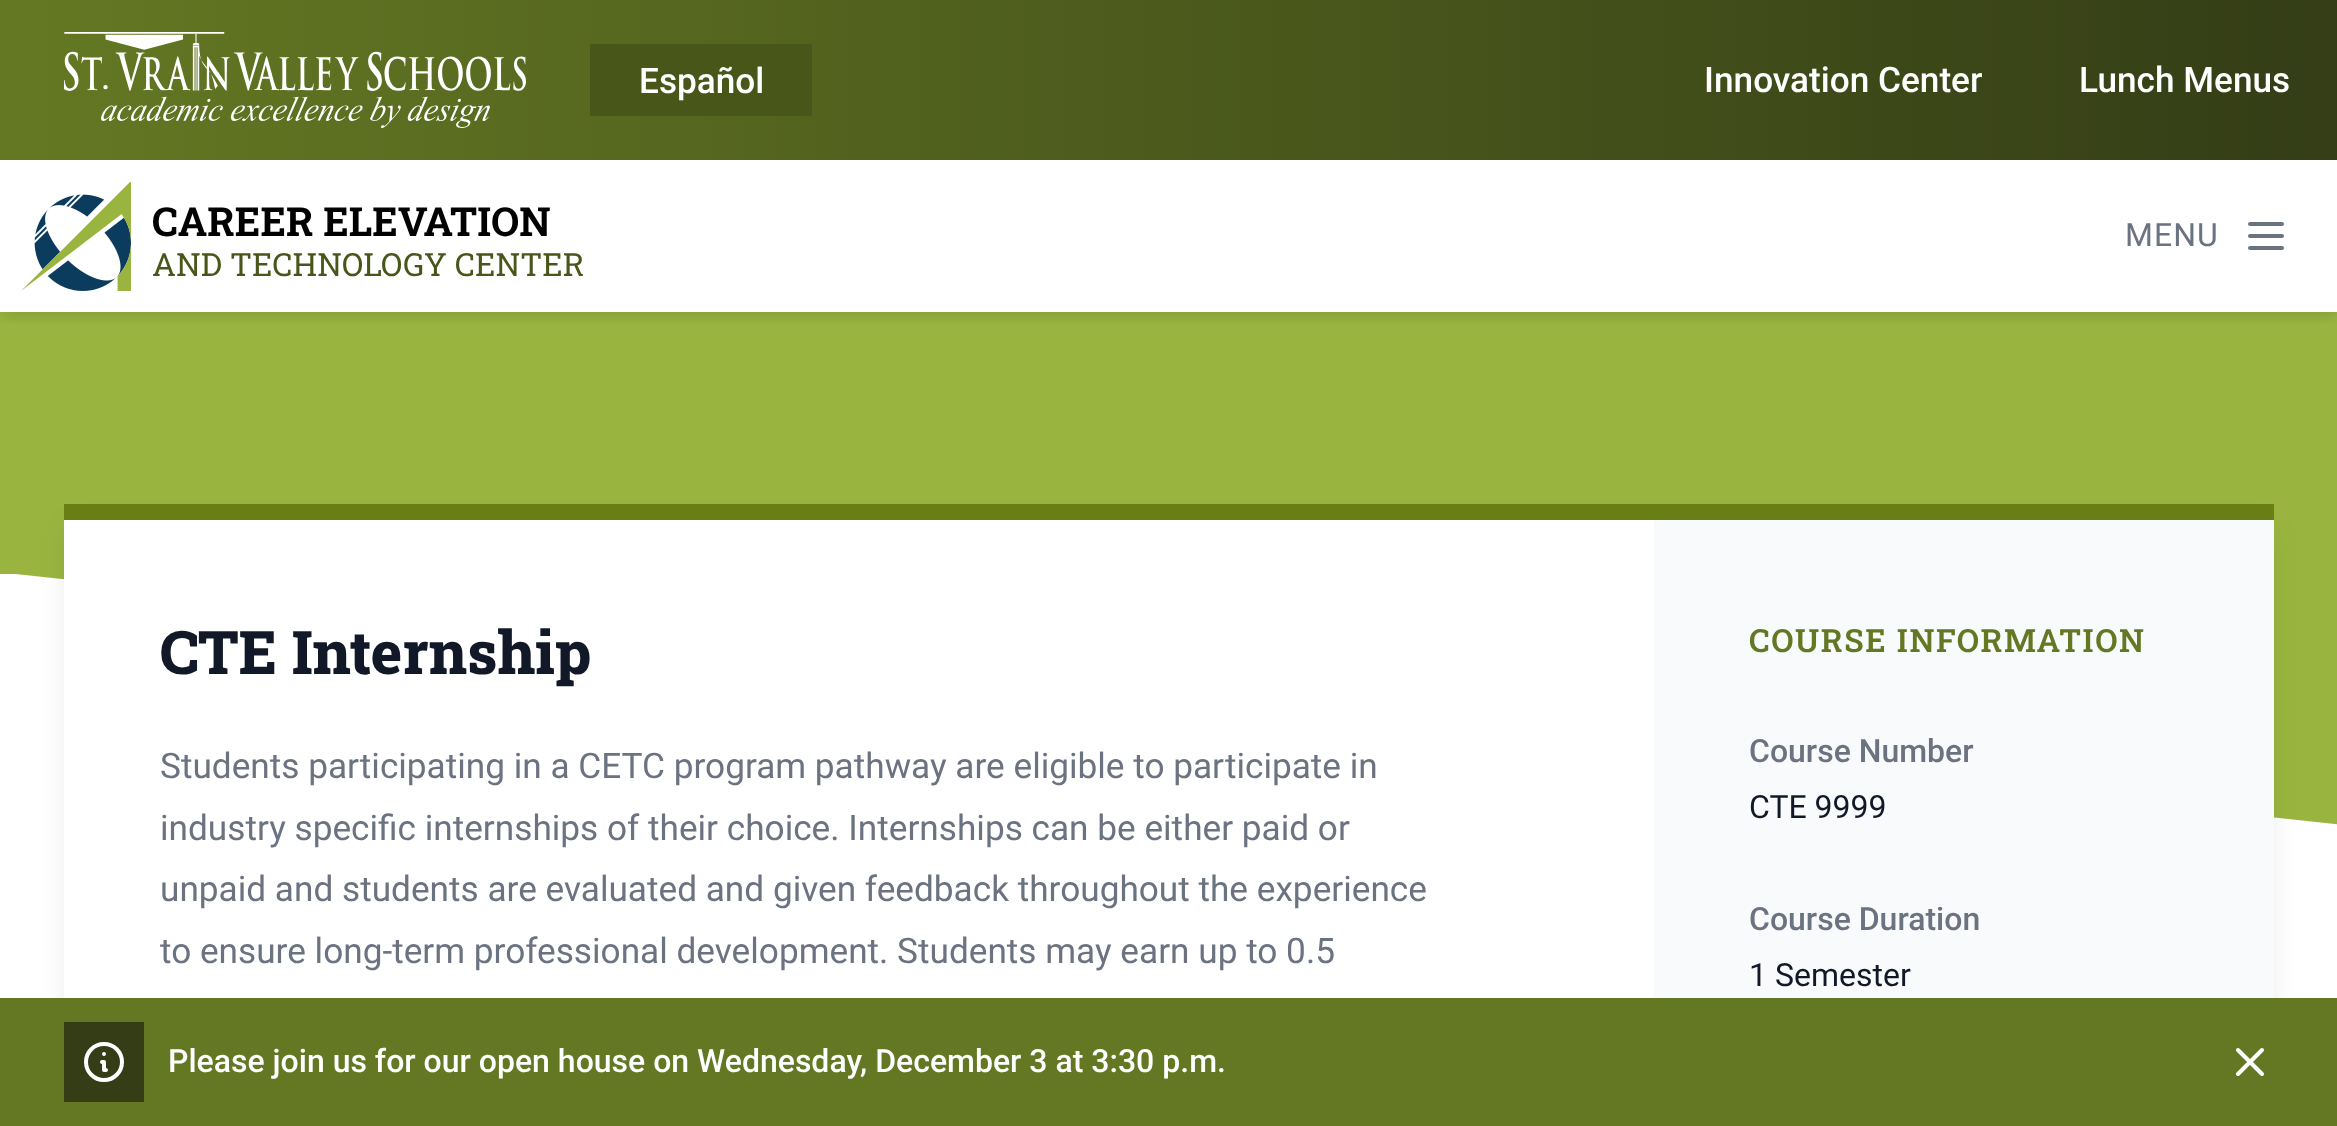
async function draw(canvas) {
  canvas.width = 2337;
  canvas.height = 1126;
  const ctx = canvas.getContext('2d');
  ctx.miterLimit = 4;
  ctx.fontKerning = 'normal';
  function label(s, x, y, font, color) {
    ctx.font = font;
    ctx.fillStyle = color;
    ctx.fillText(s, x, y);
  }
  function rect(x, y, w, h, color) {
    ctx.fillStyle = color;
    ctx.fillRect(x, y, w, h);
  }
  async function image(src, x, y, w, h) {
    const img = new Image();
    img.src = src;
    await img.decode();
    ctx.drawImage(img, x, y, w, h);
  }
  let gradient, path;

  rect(0, 0, 2337, 1126, '#fff');
  gradient = ctx.createLinearGradient(0, 80, 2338, 80);
  gradient.addColorStop(0, '#647823');
  gradient.addColorStop(1, '#343d16');
  ctx.fillStyle = gradient;
  ctx.fillRect(0, 0, 2337, 160);
  await image('assets/img1.png', 64, 32, 462, 96);
  rect(590, 44, 222, 72, '#485719');
  label('Español', 639, 93, '500 35.2px Roboto', '#fff');
  label('Innovation Center', 1704, 92, '500 35.2px Roboto', '#fff');
  label('Lunch Menus', 2079, 92, '500 35.2px Roboto', '#fff');
  rect(0, 312, 2337, 513, '#9ab53f');
  ctx.save();
  ctx.beginPath();
  ctx.rect(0, 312, 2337, 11);
  ctx.clip();
  ctx.fillStyle = '#0000001a';
  ctx.filter = 'blur(6px)';
  ctx.beginPath();
  ctx.rect(2, 170, 2334, 148);
  ctx.fill();
  ctx.filter = 'none';
  ctx.restore();
  await image('assets/img2.png', 22, 182, 109, 109);
  label('CAREER ELEVATION', 152, 236, 'bold 40px Roboto Slab', '#000');
  label('AND TECHNOLOGY CENTER', 152, 276, '32px Roboto Slab', '#485719');
  ctx.letterSpacing = '1px';
  label('MENU', 2125, 246, '32px Roboto', '#6b7280');
  path = new Path2D('M2250 224H2282M2250 236H2282M2250 248H2282');
  ctx.strokeStyle = '#6b7280';
  ctx.lineWidth = 4;
  ctx.lineCap = 'round';
  ctx.lineJoin = 'round';
  ctx.stroke(path);
  ctx.save();
  ctx.beginPath();
  ctx.rect(0, 574, 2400, 300);
  ctx.clip();
  ctx.fillStyle = '#fff';
  path = new Path2D('M-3 572L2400 831V872H-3Z');
  ctx.fill(path);
  ctx.restore();
  ctx.fillStyle = '#0000001a';
  ctx.filter = 'blur(15px)';
  ctx.beginPath();
  ctx.rect(70, 530, 2198, 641);
  ctx.fill();
  ctx.filter = 'none';
  rect(64, 504, 2210, 16, '#697f15');
  rect(64, 520, 1590, 478, '#fff');
  ctx.letterSpacing = '0px';
  label('CTE Internship', 160, 674, '800 60px Roboto Slab', '#111827');
  label('Students participating in a CETC program pathway are eligible to participate in', 160, 778, '35.2px Roboto', '#6b7280');
  label('industry specific internships of their choice. Internships can be either paid or', 160, 840, '35.2px Roboto', '#6b7280');
  label('unpaid and students are evaluated and given feedback throughout the experience', 160, 901, '35.2px Roboto', '#6b7280');
  label('to ensure long-term professional development. Students may earn up to 0.5', 160, 963, '35.2px Roboto', '#6b7280');
  rect(1654, 520, 620, 478, '#f9fafb');
  ctx.letterSpacing = '1.6px';
  label('COURSE INFORMATION', 1749, 652, '600 32px Roboto Slab', '#647823');
  ctx.letterSpacing = '0px';
  label('Course Number', 1749, 762, '500 32px Roboto', '#6b7280');
  label('CTE 9999', 1749, 818, '32px Roboto', '#111827');
  label('Course Duration', 1749, 930, '500 32px Roboto', '#6b7280');
  label('1 Semester', 1749, 986, '32px Roboto', '#111827');
  rect(0, 998, 2337, 128, '#647823');
  rect(64, 1022, 80, 80, '#343d16');
  path = new Path2D('M106 1070H104V1062H102M104 1054H104M122 1062C122 1072 114 1080 104 1080C94 1080 86 1072 86 1062C86 1052 94 1044 104 1044C114 1044 122 1052 122 1062Z');
  ctx.strokeStyle = '#fff';
  ctx.stroke(path);
  label('Please join us for our open house on Wednesday, December 3 at 3:30 p.m.', 168, 1072, '500 32px Roboto', '#fff');
  path = new Path2D('M2238 1074L2262 1050M2238 1050L2262 1074');
  ctx.stroke(path);
}

draw(document.querySelector('canvas'));
